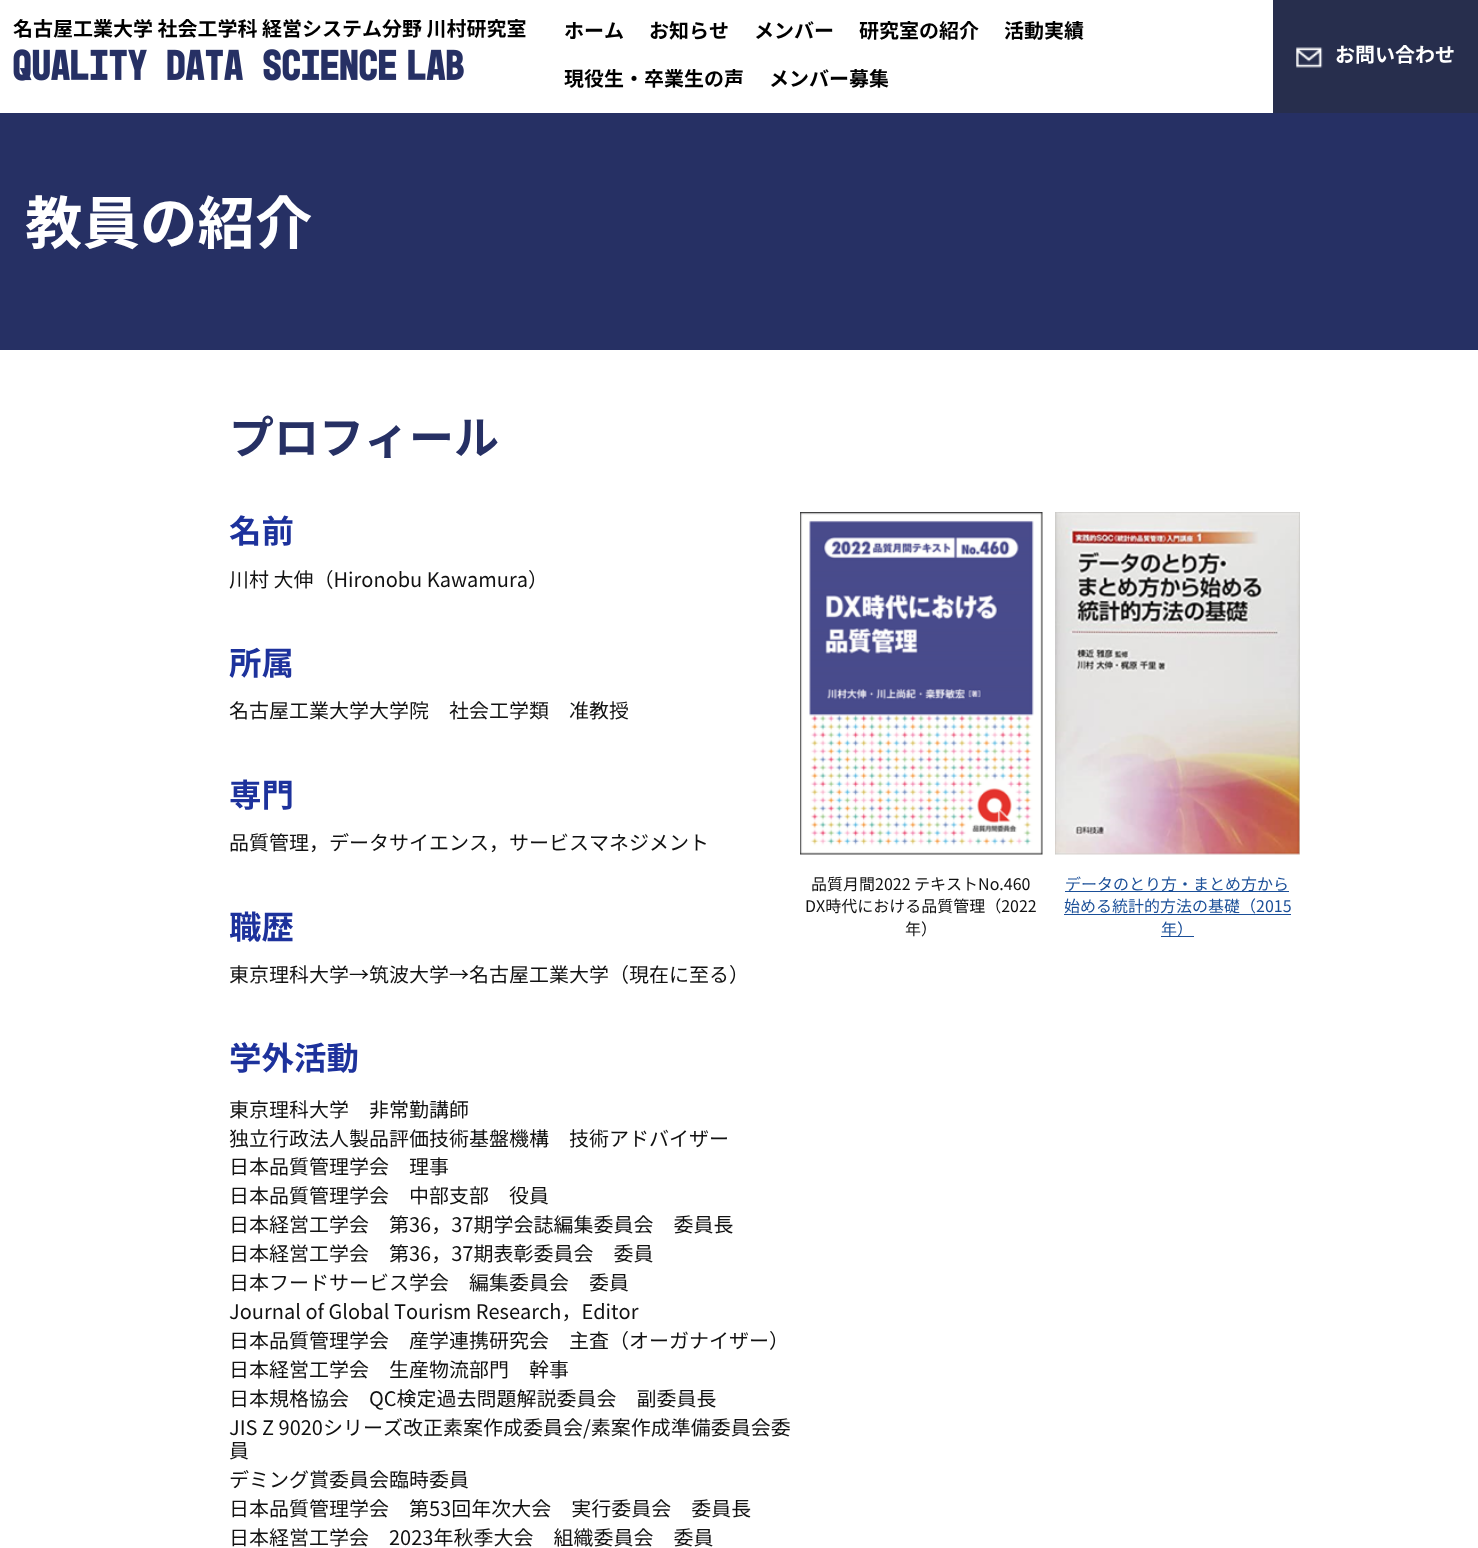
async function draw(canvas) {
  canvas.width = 1478;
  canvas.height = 1548;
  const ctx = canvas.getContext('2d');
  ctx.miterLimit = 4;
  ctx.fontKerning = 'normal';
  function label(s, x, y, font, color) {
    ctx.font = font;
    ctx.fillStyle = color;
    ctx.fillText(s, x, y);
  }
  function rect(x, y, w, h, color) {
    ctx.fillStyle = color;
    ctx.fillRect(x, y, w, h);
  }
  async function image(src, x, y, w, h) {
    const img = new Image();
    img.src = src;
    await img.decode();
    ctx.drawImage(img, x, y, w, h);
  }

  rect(0, 0, 1478, 1548, '#fff');
  label('名古屋工業大学 社会工学科 経営システム分野 川村研究室', 13, 36, '20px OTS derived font', '#000');
  await image('assets/img1.png', 13, 49, 451, 32);
  label('ホーム', 564, 38, '20px OTS derived font', '#000');
  label('お知らせ', 649, 38, '20px OTS derived font', '#000');
  label('メンバー', 754, 38, '20px OTS derived font', '#000');
  label('研究室の紹介', 859, 38, '20px OTS derived font', '#000');
  label('活動実績', 1004, 38, '20px OTS derived font', '#000');
  label('現役生・卒業生の声', 564, 86, '20px OTS derived font', '#000');
  label('メンバー募集', 769, 86, '20px OTS derived font', '#000');
  rect(1273, 0, 205, 113, '#272e4d');
  await image('assets/img2.png', 1296, 47, 27, 21);
  label('お問い合わせ', 1335, 62, '20px OTS derived font', '#fff');
  rect(0, 113, 1478, 237, '#263064');
  label('教員の紹介', 25, 244, '57.5px OTS derived font', '#fff');
  label('プロフィール', 229, 454, '45px OTS derived font', '#263064');
  label('名前', 229, 543, '32.5px OTS derived font', '#1d329c');
  label('川村 大伸（Hironobu Kawamura）', 229, 587, '20px "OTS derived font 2"', '#111');
  label('所属', 229, 675, '32.5px OTS derived font', '#1d329c');
  label('名古屋工業大学大学院　社会工学類　准教授', 229, 718, '20px "OTS derived font 2"', '#111');
  label('専門', 229, 807, '32.5px OTS derived font', '#1d329c');
  label('品質管理，データサイエンス，サービスマネジメント', 229, 850, '20px "OTS derived font 2"', '#111');
  label('職歴', 229, 939, '32.5px OTS derived font', '#1d329c');
  label('東京理科大学→筑波大学→名古屋工業大学（現在に至る）', 229, 982, '20px "OTS derived font 2"', '#111');
  label('学外活動', 229, 1070, '32.5px OTS derived font', '#1d329c');
  label('東京理科大学　非常勤講師', 229, 1117, '20px "OTS derived font 2"', '#111');
  label('独立行政法人製品評価技術基盤機構　技術アドバイザー', 229, 1146, '20px "OTS derived font 2"', '#111');
  label('日本品質管理学会　理事', 229, 1174, '20px "OTS derived font 2"', '#111');
  label('日本品質管理学会　中部支部　役員', 229, 1203, '20px "OTS derived font 2"', '#111');
  label('日本経営工学会　第36，37期学会誌編集委員会　委員長', 229, 1232, '20px "OTS derived font 2"', '#111');
  label('日本経営工学会　第36，37期表彰委員会　委員', 229, 1261, '20px "OTS derived font 2"', '#111');
  label('日本フードサービス学会　編集委員会　委員', 229, 1290, '20px "OTS derived font 2"', '#111');
  label('Journal of Global Tourism Research，Editor', 229, 1319, '20px "OTS derived font 2"', '#111');
  label('日本品質管理学会　産学連携研究会　主査（オーガナイザー）', 229, 1348, '20px "OTS derived font 2"', '#111');
  label('日本経営工学会　生産物流部門　幹事', 229, 1377, '20px "OTS derived font 2"', '#111');
  label('日本規格協会　QC検定過去問題解説委員会　副委員長', 229, 1406, '20px "OTS derived font 2"', '#111');
  label('JIS Z 9020シリーズ改正素案作成委員会/素案作成準備委員会委', 229, 1435, '20px "OTS derived font 2"', '#111');
  label('員', 229, 1458, '20px "OTS derived font 2"', '#111');
  label('デミング賞委員会臨時委員', 229, 1487, '20px "OTS derived font 2"', '#111');
  label('日本品質管理学会　第53回年次大会　実行委員会　委員長', 229, 1516, '20px "OTS derived font 2"', '#111');
  label('日本経営工学会　2023年秋季大会　組織委員会　委員', 229, 1545, '20px "OTS derived font 2"', '#111');
  await image('assets/img3.png', 800, 512, 243, 343);
  label('品質月間2022 テキストNo.460', 811, 890, '16px "OTS derived font 2"', '#111');
  label('DX時代における品質管理（2022', 805, 912, '16px "OTS derived font 2"', '#111');
  label('年）', 905, 935, '16px "OTS derived font 2"', '#111');
  await image('assets/img4.png', 1055, 512, 245, 343);
  rect(1065, 891, 224, 1, '#1b4f98');
  label('データのとり方・まとめ方から', 1065, 890, '16px "OTS derived font 2"', '#1b4f98');
  label('始める統計的方法の基礎（2015', 1064, 912, '16px "OTS derived font 2"', '#1b4f98');
  rect(1064, 914, 227, 1, '#1b4f98');
  rect(1161, 936, 33, 1, '#1b4f98');
  label('年）', 1161, 935, '16px "OTS derived font 2"', '#1b4f98');
}

draw(document.querySelector('canvas'));
